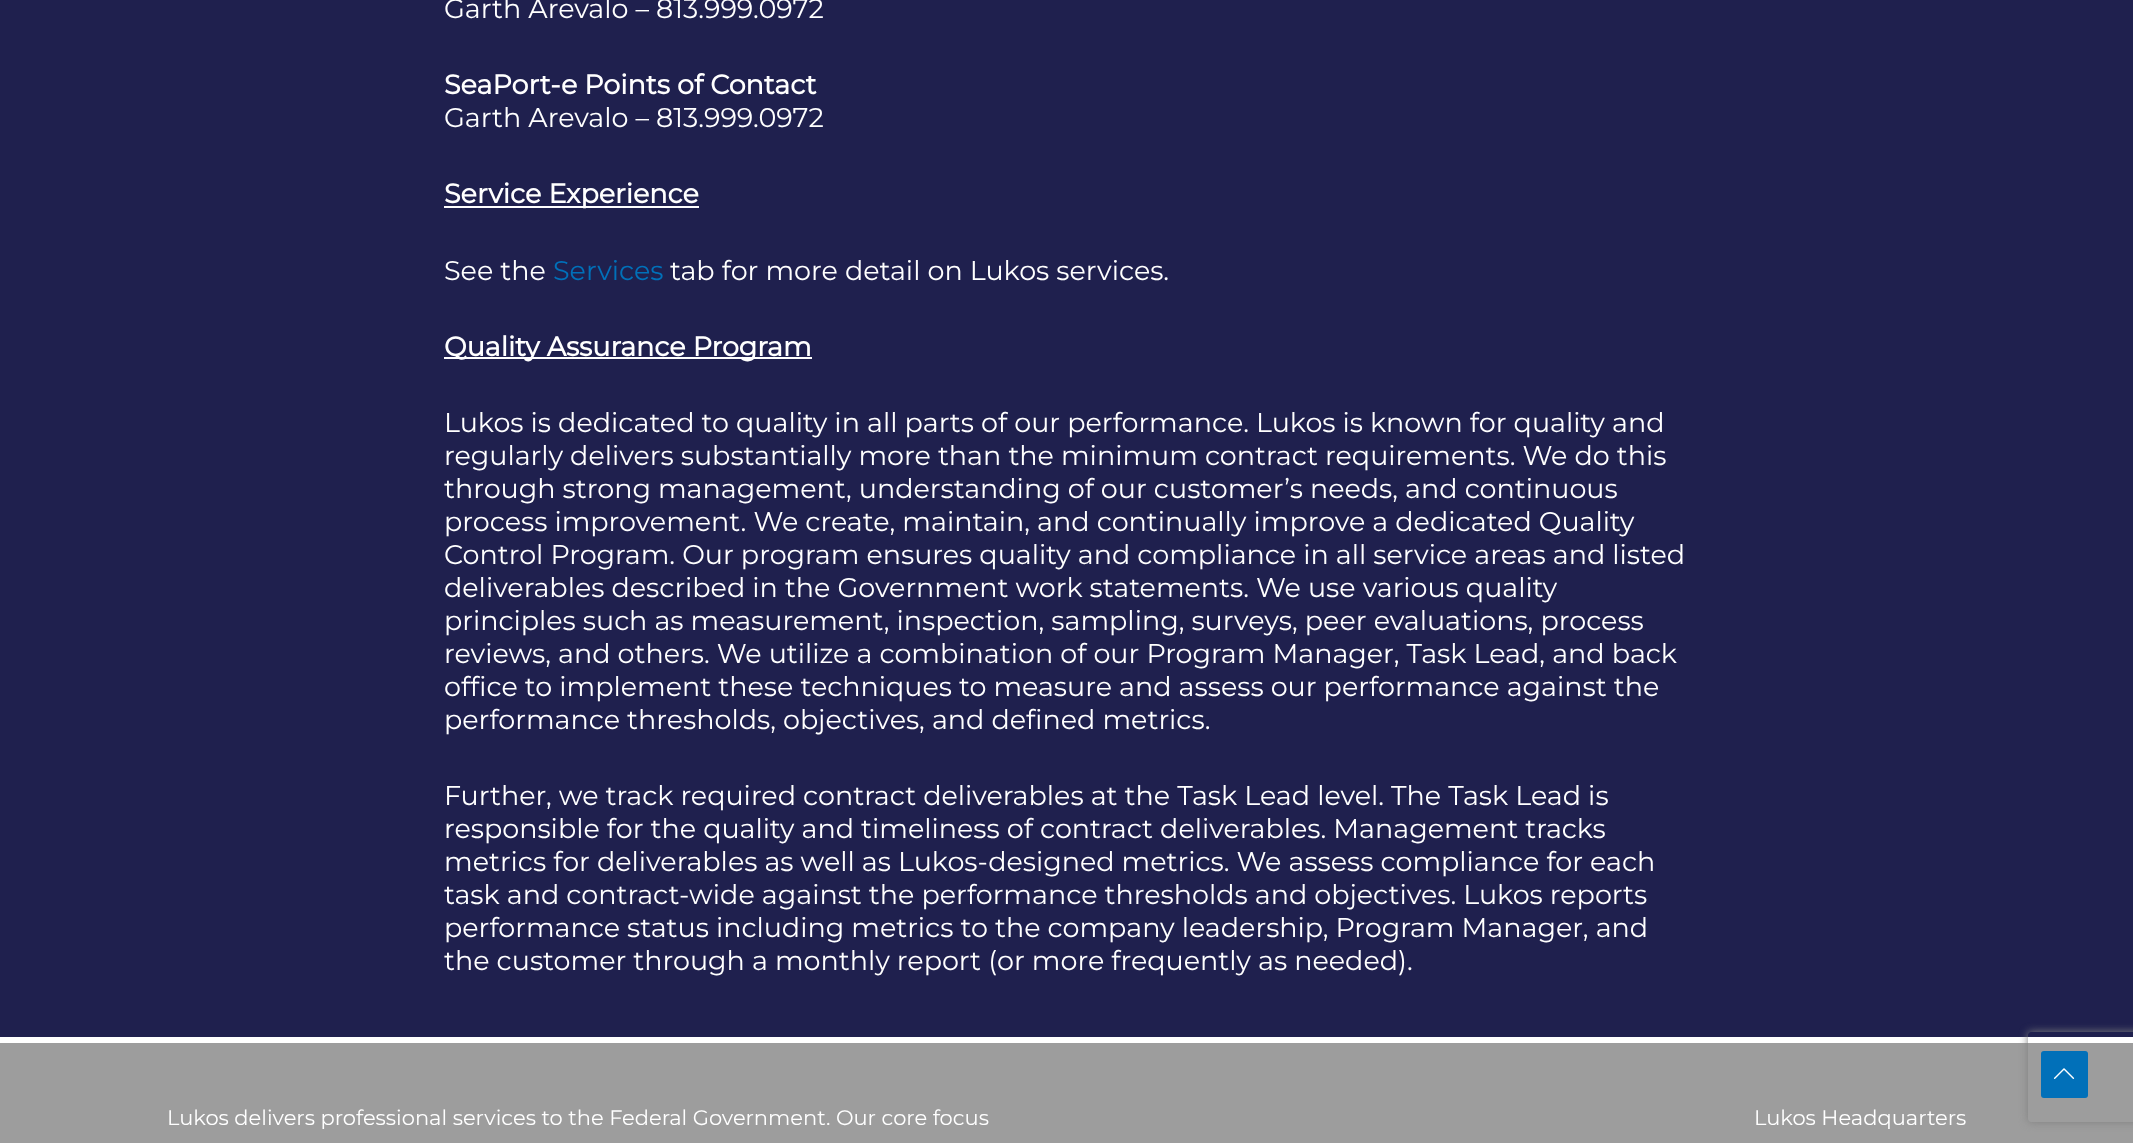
async function draw(canvas) {
  canvas.width = 2133;
  canvas.height = 1143;
  const ctx = canvas.getContext('2d');
  ctx.miterLimit = 4;
  ctx.fontKerning = 'normal';
  function label(s, x, y, font, color) {
    ctx.font = font;
    ctx.fillStyle = color;
    ctx.fillText(s, x, y);
  }
  function rect(x, y, w, h, color) {
    ctx.fillStyle = color;
    ctx.fillRect(x, y, w, h);
  }
  async function image(src, x, y, w, h) {
    const img = new Image();
    img.src = src;
    await img.decode();
    ctx.drawImage(img, x, y, w, h);
  }
  let path;

  rect(0, 0, 2133, 1143, '#fff');
  rect(0, 0, 2133, 1037, '#1f204e');
  label('Garth Arevalo – 813.999.0972', 444, 18, '100 27px Montserrat', '#fff');
  label('SeaPort-e Points of Contact', 444, 94, 'bold 27px Montserrat', '#fff');
  label('Garth Arevalo – 813.999.0972', 444, 127, '100 27px Montserrat', '#fff');
  rect(444, 206, 255, 2, '#fff');
  label('Service Experience', 444, 203, 'bold 27px Montserrat', '#fff');
  label('See the', 444, 280, '100 27px Montserrat', '#fff');
  label('Services', 553, 280, '100 27px Montserrat', '#0170b9');
  label('tab for more detail on Lukos services.', 670, 280, '100 27px Montserrat', '#fff');
  rect(444, 357, 368, 2, '#fff');
  label('Quality Assurance Program', 444, 356, 'bold 27px Montserrat', '#fff');
  label('Lukos is dedicated to quality in all parts of our performance. Lukos is known for quality and', 444, 432, '100 27px Montserrat', '#fff');
  label('regularly delivers substantially more than the minimum contract requirements. We do this', 444, 465, '100 27px Montserrat', '#fff');
  label('through strong management, understanding of our customer’s needs, and continuous', 444, 498, '100 27px Montserrat', '#fff');
  label('process improvement. We create, maintain, and continually improve a dedicated Quality', 444, 531, '100 27px Montserrat', '#fff');
  label('Control Program. Our program ensures quality and compliance in all service areas and listed', 444, 564, '100 27px Montserrat', '#fff');
  label('deliverables described in the Government work statements. We use various quality', 444, 597, '100 27px Montserrat', '#fff');
  label('principles such as measurement, inspection, sampling, surveys, peer evaluations, process', 444, 630, '100 27px Montserrat', '#fff');
  label('reviews, and others. We utilize a combination of our Program Manager, Task Lead, and back', 444, 663, '100 27px Montserrat', '#fff');
  label('office to implement these techniques to measure and assess our performance against the', 444, 696, '100 27px Montserrat', '#fff');
  label('performance thresholds, objectives, and defined metrics.', 444, 729, '100 27px Montserrat', '#fff');
  label('Further, we track required contract deliverables at the Task Lead level. The Task Lead is', 444, 805, '100 27px Montserrat', '#fff');
  label('responsible for the quality and timeliness of contract deliverables. Management tracks', 444, 838, '100 27px Montserrat', '#fff');
  label('metrics for deliverables as well as Lukos-designed metrics. We assess compliance for each', 444, 871, '100 27px Montserrat', '#fff');
  label('task and contract-wide against the performance thresholds and objectives. Lukos reports', 444, 904, '100 27px Montserrat', '#fff');
  label('performance status including metrics to the company leadership, Program Manager, and', 444, 937, '100 27px Montserrat', '#fff');
  label('the customer through a monthly report (or more frequently as needed).', 444, 970, '100 27px Montserrat', '#fff');
  rect(0, 1043, 2133, 100, '#9d9d9d');
  label('Lukos delivers professional services to the Federal Government. Our core focus', 167, 1125, '100 21px Montserrat', '#fff');
  label('Lukos Headquarters', 1754, 1125, '100 21px Montserrat', '#fff');
  ctx.save();
  path = new Path2D('M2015 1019H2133V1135H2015ZM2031 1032H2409C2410.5 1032 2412 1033.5 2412 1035V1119C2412 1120.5 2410.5 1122 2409 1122H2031C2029.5 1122 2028 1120.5 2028 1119V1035C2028 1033.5 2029.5 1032 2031 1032Z');
  ctx.clip(path, 'evenodd');
  ctx.fillStyle = '#808080';
  ctx.filter = 'blur(4px)';
  ctx.beginPath();
  ctx.roundRect(2028, 1032, 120, 90, 3);
  ctx.fill();
  ctx.filter = 'none';
  ctx.restore();
  ctx.fillStyle = '#0170b9';
  path = new Path2D('M2085 1098H2044C2042 1098 2041 1097 2041 1095V1054C2041 1052 2042 1051 2044 1051H2085C2087 1051 2088 1052 2088 1054V1095C2088 1097 2087 1098 2085 1098Z');
  ctx.fill(path);
  await image('assets/img1.png', 2053, 1068, 22, 11);
}

draw(document.querySelector('canvas'));
